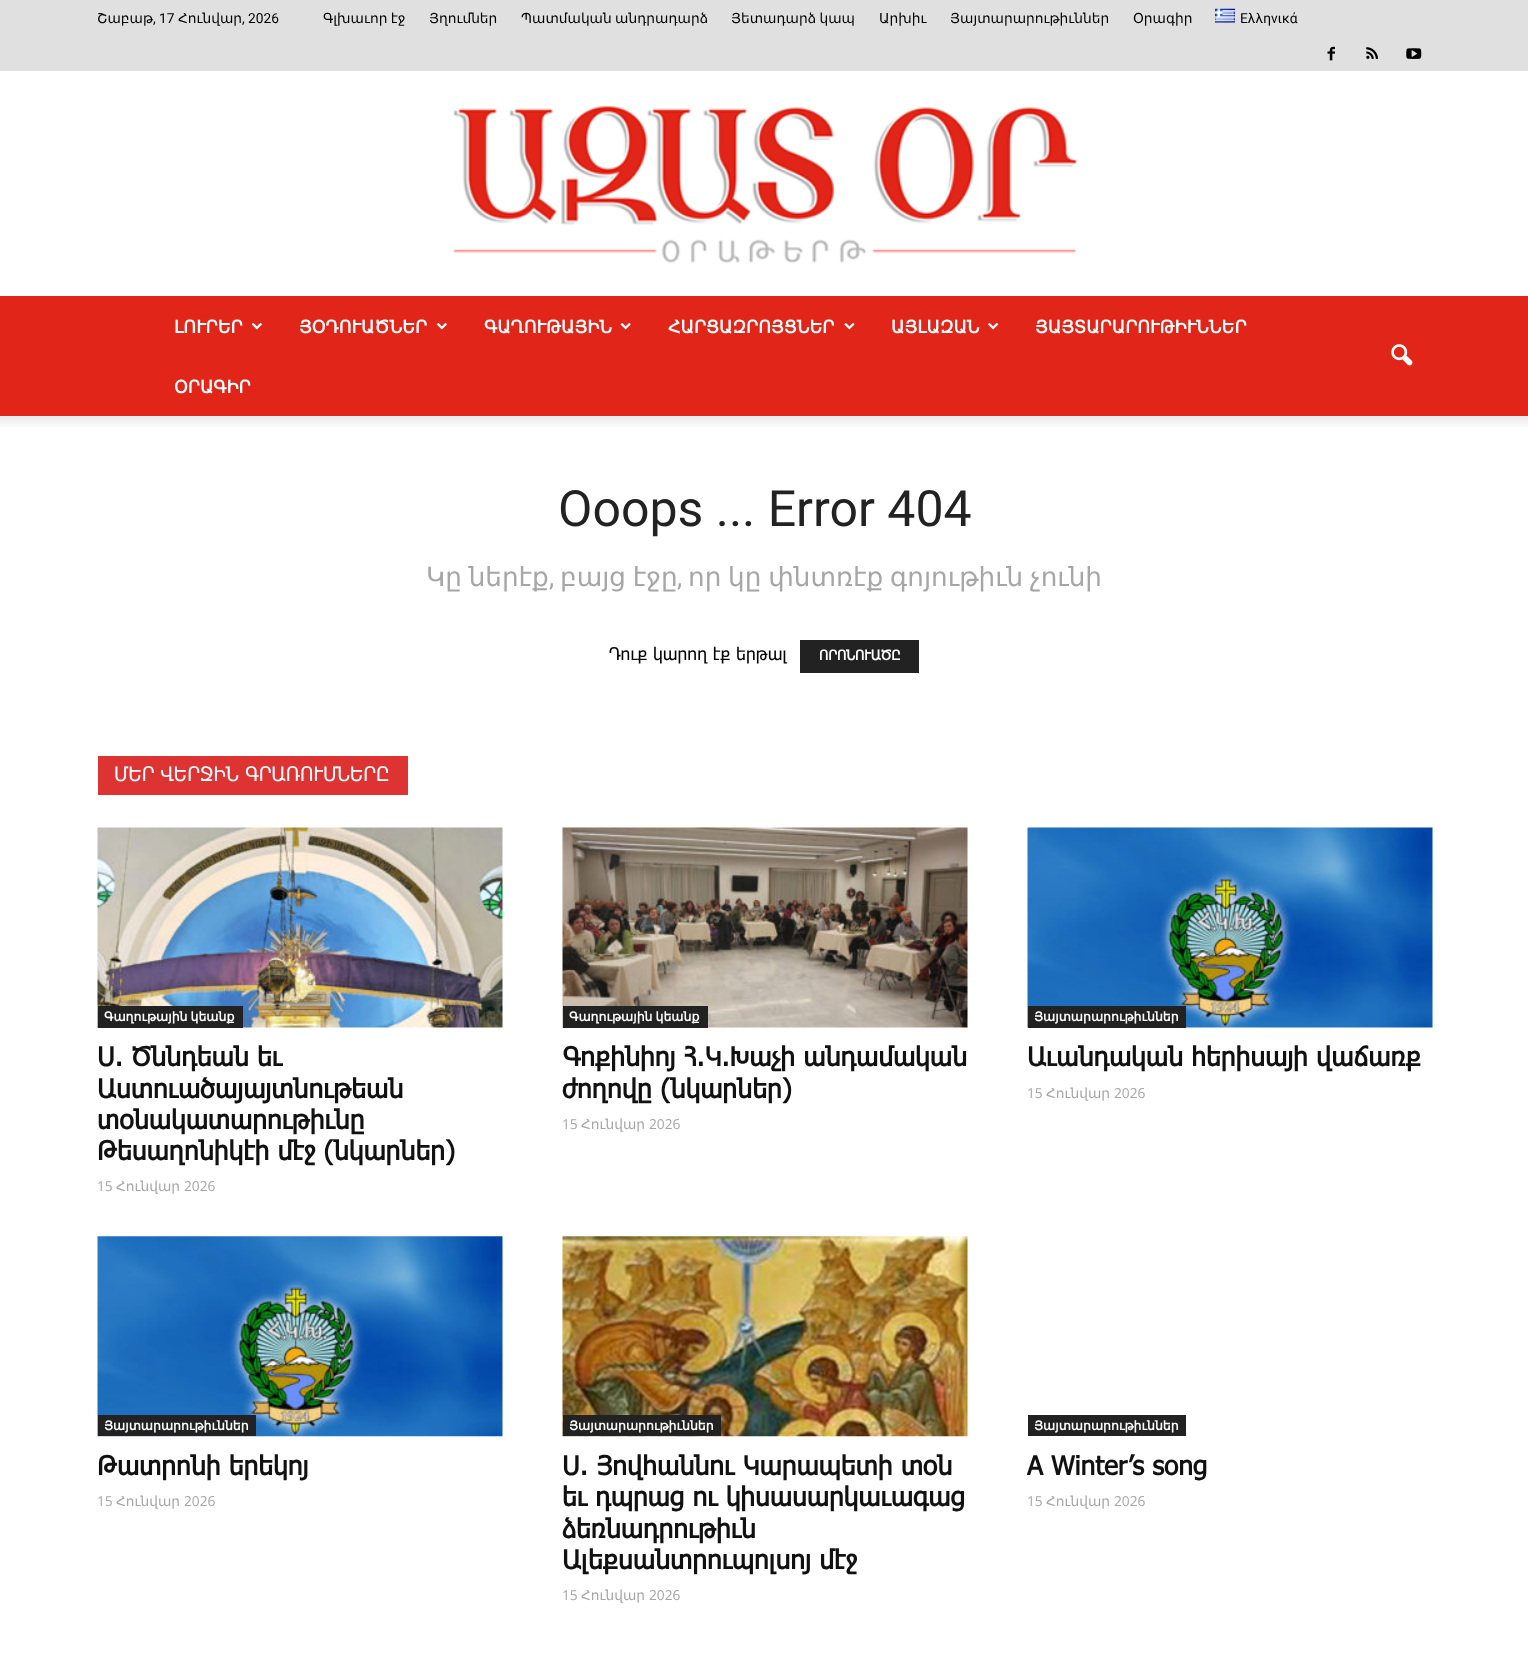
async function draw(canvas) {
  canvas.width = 1528;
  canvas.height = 1654;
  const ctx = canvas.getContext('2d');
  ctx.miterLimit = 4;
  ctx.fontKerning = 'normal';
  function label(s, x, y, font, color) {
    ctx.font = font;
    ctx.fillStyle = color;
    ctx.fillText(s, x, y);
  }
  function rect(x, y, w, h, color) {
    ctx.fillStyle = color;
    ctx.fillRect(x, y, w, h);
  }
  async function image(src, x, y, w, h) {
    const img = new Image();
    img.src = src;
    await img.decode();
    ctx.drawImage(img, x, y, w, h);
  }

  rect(0, 0, 1528, 1654, '#fff');
  rect(0, 0, 1528, 71, '#e0e0e0');
  label('Շաբաթ', 97, 23, '13.75px DejaVu Sans', '#000');
  label(', 17', 153, 23, '13.75px Roboto', '#000');
  label('Հունվար', 178, 23, '13.75px DejaVu Sans', '#000');
  label(', 2026', 242, 23, '13.75px Roboto', '#000');
  ctx.wordSpacing = '-1px';
  label('Գլխաւոր էջ', 323, 23, '13.75px DejaVu Sans', '#000');
  ctx.wordSpacing = '0px';
  label('Յղումներ', 429, 23, '13.75px DejaVu Sans', '#000');
  ctx.wordSpacing = '-1px';
  label('Պատմական անդրադարձ', 521, 23, '13.75px DejaVu Sans', '#000');
  label('Յետադարձ կապ', 731, 23, '13.75px DejaVu Sans', '#000');
  ctx.wordSpacing = '0px';
  label('Արխիւ', 879, 23, '13.75px DejaVu Sans', '#000');
  label('Յայտարարութիւններ', 950, 23, '13.75px DejaVu Sans', '#000');
  label('Օրագիր', 1133, 23, '13.75px DejaVu Sans', '#000');
  await image('assets/img1.png', 1215, 8, 20, 15);
  label('Ελληνικά', 1240, 23, '13.75px Roboto', '#000');
  await image('assets/img2.png', 1327, 46, 8, 15);
  await image('assets/img3.png', 1366, 47, 12, 12);
  await image('assets/img4.png', 1406, 48, 16, 11);
  await image('assets/img5.png', 453, 105, 625, 158);
  rect(0, 296, 1528, 120, '#e12519');
  label('ԼՈՒՐԵՐ', 174, 333, 'bold 17.5px DejaVu Sans', '#fff');
  await image('assets/img6.png', 251, 322, 11, 8);
  label('ՅՕԴՈՒԱԾՆԵՐ', 299, 333, 'bold 17.5px DejaVu Sans', '#fff');
  await image('assets/img6.png', 436, 322, 11, 8);
  label('ԳԱՂՈՒԹԱՅԻՆ', 484, 333, 'bold 17.5px DejaVu Sans', '#fff');
  await image('assets/img7.png', 620, 322, 11, 8);
  label('ՀԱՐՑԱԶՐՈՅՑՆԵՐ', 668, 333, 'bold 17.5px DejaVu Sans', '#fff');
  await image('assets/img8.png', 844, 322, 11, 8);
  label('ԱՅԼԱԶԱՆ', 891, 333, 'bold 17.5px DejaVu Sans', '#fff');
  await image('assets/img9.png', 988, 322, 11, 8);
  label('ՅԱՅՏԱՐԱՐՈՒԹԻՒՆՆԵՐ', 1035, 333, 'bold 17.5px DejaVu Sans', '#fff');
  label('ՕՐԱԳԻՐ', 174, 393, 'bold 17.5px DejaVu Sans', '#fff');
  await image('assets/img10.png', 1391, 344, 22, 22);
  await image('assets/img11.png', 0, 416, 1528, 11);
  label('Ooops ... Error 404', 558, 526, '50px Roboto', '#222');
  ctx.wordSpacing = '-1.5px';
  label('Կը ներէք', 426, 586, '26.25px DejaVu Sans', '#a6a6a6');
  ctx.wordSpacing = '0px';
  label(',', 549, 586, '26.25px Roboto', '#a6a6a6');
  ctx.wordSpacing = '-1.5px';
  label('բայց էջը', 560, 586, '26.25px DejaVu Sans', '#a6a6a6');
  ctx.wordSpacing = '0px';
  label(',', 677, 586, '26.25px Roboto', '#a6a6a6');
  ctx.wordSpacing = '-1.5px';
  label('որ կը փնտռէք գոյութիւն չունի', 688, 586, '26.25px DejaVu Sans', '#a6a6a6');
  ctx.wordSpacing = '0px';
  label('Դուք կարող էք երթալ', 609, 660, '17.5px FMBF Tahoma', '#000');
  rect(800, 640, 119, 33, '#222');
  label('ՈՐՈՆՈՒԱԾԸ', 819, 660, 'bold 13.75px FMBF Tahoma', '#fff');
  rect(98, 756, 310, 39, '#d33');
  label('ՄԵՐ ՎԵՐՋԻՆ ԳՐԱՌՈՒՄՆԵՐԸ', 114, 781, '20px FMBF Tahoma', '#fff');
  await image('assets/img12.png', 97, 827, 406, 201);
  rect(98, 1006, 145, 22, '#222');
  ctx.wordSpacing = '-1px';
  label('Գաղութային կեանք', 104, 1021, 'bold 12.5px DejaVu Sans', '#fff');
  ctx.wordSpacing = '0px';
  label('Ս. Ծննդեան եւ', 97, 1066, 'bold 26.25px FMBF Tahoma', '#111');
  label('Աստուածայայտնութեան', 97, 1098, 'bold 26.25px FMBF Tahoma', '#111');
  label('տօնակատարութիւնը', 97, 1129, 'bold 26.25px FMBF Tahoma', '#111');
  label('Թեսաղոնիկէի մէջ (նկարներ)', 97, 1160, 'bold 26.25px FMBF Tahoma', '#111');
  label('15', 97, 1191, '13.75px Open Sans', '#a6a6a6');
  label('Հունվար', 116, 1191, '13.75px DejaVu Sans', '#a6a6a6');
  label('2026', 184, 1191, '13.75px Open Sans', '#a6a6a6');
  await image('assets/img13.png', 562, 827, 406, 201);
  rect(563, 1006, 145, 22, '#222');
  ctx.wordSpacing = '-1px';
  label('Գաղութային կեանք', 569, 1021, 'bold 12.5px DejaVu Sans', '#fff');
  ctx.wordSpacing = '0px';
  label('Գոքինիոյ Հ.Կ.Խաչի անդամական', 562, 1066, 'bold 26.25px FMBF Tahoma', '#111');
  label('ժողովը (նկարներ)', 562, 1098, 'bold 26.25px FMBF Tahoma', '#111');
  label('15', 562, 1129, '13.75px Open Sans', '#a6a6a6');
  label('Հունվար', 581, 1129, '13.75px DejaVu Sans', '#a6a6a6');
  label('2026', 649, 1129, '13.75px Open Sans', '#a6a6a6');
  await image('assets/img14.png', 1027, 827, 406, 201);
  rect(1028, 1006, 158, 22, '#222');
  label('Յայտարարութիւններ', 1034, 1021, 'bold 12.5px DejaVu Sans', '#fff');
  label('Աւանդական հերիսայի վաճառք', 1027, 1066, 'bold 26.25px FMBF Tahoma', '#111');
  label('15', 1027, 1098, '13.75px Open Sans', '#a6a6a6');
  label('Հունվար', 1046, 1098, '13.75px DejaVu Sans', '#a6a6a6');
  label('2026', 1114, 1098, '13.75px Open Sans', '#a6a6a6');
  await image('assets/img15.png', 97, 1236, 406, 201);
  rect(98, 1415, 158, 21, '#222');
  label('Յայտարարութիւններ', 104, 1430, 'bold 12.5px DejaVu Sans', '#fff');
  label('Թատրոնի երեկոյ', 97, 1475, 'bold 26.25px FMBF Tahoma', '#111');
  label('15', 97, 1506, '13.75px Open Sans', '#a6a6a6');
  label('Հունվար', 116, 1506, '13.75px DejaVu Sans', '#a6a6a6');
  label('2026', 184, 1506, '13.75px Open Sans', '#a6a6a6');
  await image('assets/img16.png', 562, 1236, 406, 201);
  rect(563, 1415, 158, 21, '#222');
  label('Յայտարարութիւններ', 569, 1430, 'bold 12.5px DejaVu Sans', '#fff');
  label('Ս. Յովհաննու Կարապետի տօն', 562, 1475, 'bold 26.25px FMBF Tahoma', '#111');
  label('եւ դպրաց ու կիսասարկաւագաց', 562, 1506, 'bold 26.25px FMBF Tahoma', '#111');
  label('ձեռնադրութիւն', 562, 1538, 'bold 26.25px FMBF Tahoma', '#111');
  label('Ալեքսանտրուպոլսոյ մէջ', 562, 1569, 'bold 26.25px FMBF Tahoma', '#111');
  label('15', 562, 1600, '13.75px Open Sans', '#a6a6a6');
  label('Հունվար', 581, 1600, '13.75px DejaVu Sans', '#a6a6a6');
  label('2026', 649, 1600, '13.75px Open Sans', '#a6a6a6');
  rect(1028, 1415, 158, 21, '#222');
  label('Յայտարարութիւններ', 1034, 1430, 'bold 12.5px DejaVu Sans', '#fff');
  label('A Winter’s song', 1027, 1475, 'bold 26.25px FMBF Tahoma', '#111');
  label('15', 1027, 1506, '13.75px Open Sans', '#a6a6a6');
  label('Հունվար', 1046, 1506, '13.75px DejaVu Sans', '#a6a6a6');
  label('2026', 1114, 1506, '13.75px Open Sans', '#a6a6a6');
}

draw(document.querySelector('canvas'));
